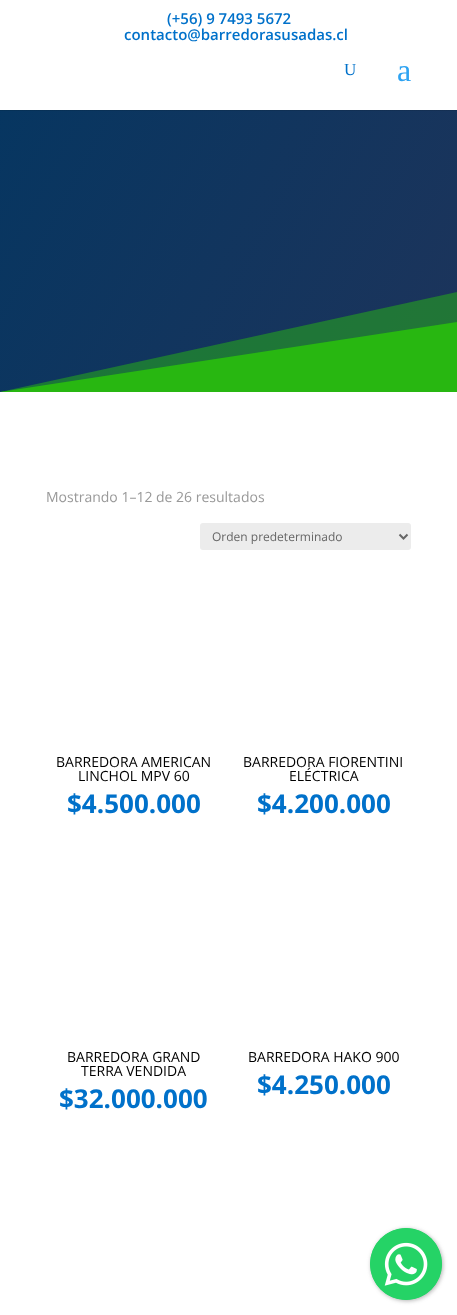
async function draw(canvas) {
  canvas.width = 457;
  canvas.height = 1315;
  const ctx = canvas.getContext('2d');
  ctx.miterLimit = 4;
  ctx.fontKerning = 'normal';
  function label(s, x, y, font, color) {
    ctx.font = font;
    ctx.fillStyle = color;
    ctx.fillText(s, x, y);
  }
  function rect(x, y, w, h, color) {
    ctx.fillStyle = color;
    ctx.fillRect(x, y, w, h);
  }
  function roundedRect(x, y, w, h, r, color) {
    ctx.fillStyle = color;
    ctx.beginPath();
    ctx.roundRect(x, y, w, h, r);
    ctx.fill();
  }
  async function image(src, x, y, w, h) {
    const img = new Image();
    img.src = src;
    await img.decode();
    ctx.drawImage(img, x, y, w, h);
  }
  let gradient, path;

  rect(0, 0, 457, 1315, '#fff');
  label('(+56) 9 7493 5672', 167, 24, '600 15px Open Sans', '#0071ca');
  label('contacto@barredorasusadas.cl', 124, 40, '600 15px Open Sans', '#0071ca');
  label('U', 344, 75, '17px Liberation Serif', '#0071ca');
  label('a', 397, 81, '32px Liberation Serif', '#2ea3f2');
  gradient = ctx.createLinearGradient(-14, 107, 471, 365);
  gradient.addColorStop(0, '#063661');
  gradient.addColorStop(1, '#1d345b');
  ctx.fillStyle = gradient;
  ctx.fillRect(0, 111, 457, 281);
  gradient = ctx.createLinearGradient(-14, 107, 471, 365);
  gradient.addColorStop(0, '#053157');
  gradient.addColorStop(1, '#1a2f52');
  ctx.fillStyle = gradient;
  ctx.fillRect(0, 110, 457, 1);
  ctx.fillStyle = '#28b71180';
  path = new Path2D('M457 292V392H0Z');
  ctx.fill(path);
  ctx.fillStyle = '#28b711';
  path = new Path2D('M457 322V392H0Z');
  ctx.fill(path);
  label('Mostrando 1–12 de 26 resultados', 46, 502, '14px Open Sans', '#999');
  roundedRect(200, 523, 211, 27, 3, '#ececec');
  path = new Path2D('M399.5 534.5L403.5 538.5L407.5 534.5');
  ctx.strokeStyle = '#666';
  ctx.lineWidth = 2;
  ctx.stroke(path);
  label('Orden predeterminado', 212, 541, '12px Open Sans', '#666');
  label('BARREDORA AMERICAN', 56, 767, '14px Open Sans', '#000');
  label('LINCHOL MPV 60', 78, 781, '14px Open Sans', '#000');
  label('$4.500.000', 67, 813, 'bold 26px Open Sans', '#0071ca');
  label('BARREDORA FIORENTINI', 243, 767, '14px Open Sans', '#000');
  label('ELÉCTRICA', 289, 781, '14px Open Sans', '#000');
  label('$4.200.000', 257, 813, 'bold 26px Open Sans', '#0071ca');
  label('BARREDORA GRAND', 67, 1062, '14px Open Sans', '#000');
  label('TERRA VENDIDA', 81, 1076, '14px Open Sans', '#000');
  label('$32.000.000', 59, 1108, 'bold 26px Open Sans', '#0071ca');
  label('BARREDORA HAKO 900', 248, 1062, '14px Open Sans', '#000');
  label('$4.250.000', 257, 1094, 'bold 26px Open Sans', '#0071ca');
  ctx.fillStyle = '#3c3c3c66';
  ctx.filter = 'blur(2px)';
  ctx.beginPath();
  ctx.roundRect(371, 1229, 72, 72, 36);
  ctx.fill();
  ctx.filter = 'none';
  ctx.fillStyle = '#25d366';
  ctx.beginPath();
  ctx.arc(406, 1264, 36, 0, 2 * Math.PI);
  ctx.fill();
  await image('assets/img1.png', 370, 1228, 72, 72);
}

draw(document.querySelector('canvas'));
